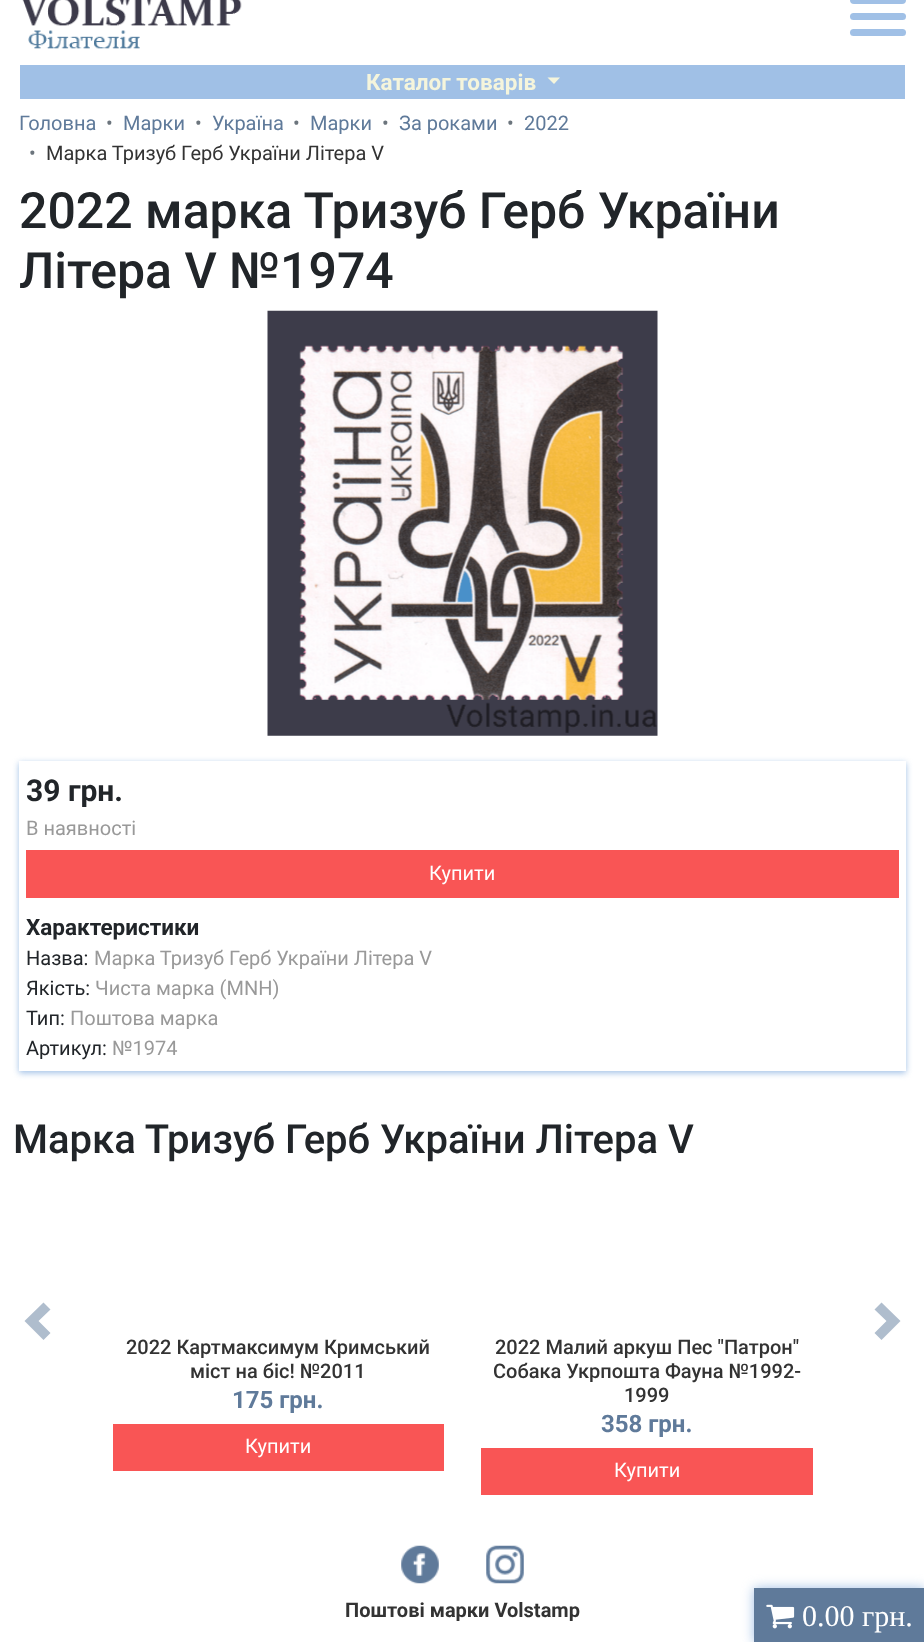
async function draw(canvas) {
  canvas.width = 924;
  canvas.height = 1642;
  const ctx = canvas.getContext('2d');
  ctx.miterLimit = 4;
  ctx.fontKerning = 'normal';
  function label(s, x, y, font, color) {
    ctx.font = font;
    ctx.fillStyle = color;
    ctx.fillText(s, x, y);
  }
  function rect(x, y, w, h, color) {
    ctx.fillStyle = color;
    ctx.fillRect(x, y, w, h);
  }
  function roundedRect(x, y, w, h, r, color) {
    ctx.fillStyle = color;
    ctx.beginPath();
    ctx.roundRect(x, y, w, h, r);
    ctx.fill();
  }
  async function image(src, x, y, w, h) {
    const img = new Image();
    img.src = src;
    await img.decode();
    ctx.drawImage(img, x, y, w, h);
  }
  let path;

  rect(0, 0, 924, 1642, '#fff');
  await image('assets/img1.png', 22, 0, 220, 49);
  roundedRect(850, -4, 56, 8, 4, '#a0c0e6');
  roundedRect(850, 13, 56, 7, 3.5, '#a0c0e6');
  roundedRect(850, 29, 56, 7, 3.5, '#a0c0e6');
  rect(20, 65, 885, 34, '#a0c0e6');
  label('Каталог товарів', 366, 90, 'bold 22.5px Roboto', '#f5f5dc');
  path = new Path2D('M547.5 77.5H560L554 84Z');
  ctx.fill(path);
  label('Головна', 19, 130, '20px Roboto', '#5f7a9a');
  label('•', 106, 130, '20px Roboto', '#6c757d');
  label('Марки', 123, 130, '20px Roboto', '#5f7a9a');
  label('•', 195, 130, '20px Roboto', '#6c757d');
  label('Україна', 212, 130, '20px Roboto', '#5f7a9a');
  label('•', 293, 130, '20px Roboto', '#6c757d');
  label('Марки', 310, 130, '20px Roboto', '#5f7a9a');
  label('•', 382, 130, '20px Roboto', '#6c757d');
  label('За роками', 399, 130, '20px Roboto', '#5f7a9a');
  label('•', 507, 130, '20px Roboto', '#6c757d');
  label('2022', 524, 130, '20px Roboto', '#5f7a9a');
  label('•', 29, 160, '20px Roboto', '#6c757d');
  label('Марка Тризуб Герб України Літера V', 46, 160, '20px Roboto', '#333');
  label('2022 марка Тризуб Герб України', 19, 228, '500 50px Roboto', '#212529');
  label('Літера V №1974', 19, 288, '500 50px Roboto', '#212529');
  await image('assets/img2.png', 267, 310, 391, 426);
  ctx.save();
  path = new Path2D('M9 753H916V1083H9ZM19 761H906V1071H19Z');
  ctx.clip(path, 'evenodd');
  ctx.fillStyle = '#a0c0e6';
  ctx.filter = 'blur(3px)';
  ctx.beginPath();
  ctx.rect(19, 763, 887, 310);
  ctx.fill();
  ctx.filter = 'none';
  ctx.restore();
  label('39 грн.', 26, 801, 'bold 30px Roboto', '#212529');
  label('В наявності', 26, 835, '20px Roboto', '#999');
  rect(26, 850, 873, 48, '#f95555');
  label('Купити', 429, 880, '20px Roboto', '#fff');
  label('Характеристики', 26, 935, 'bold 22.5px Roboto', '#212529');
  label('Назва:', 26, 965, '20px Roboto', '#212529');
  label('Марка Тризуб Герб України Літера V', 94, 965, '20px Roboto', '#999');
  label('Якість:', 26, 995, '20px Roboto', '#212529');
  label('Чиста марка (MNH)', 95, 995, '20px Roboto', '#999');
  label('Тип:', 26, 1025, '20px Roboto', '#212529');
  label('Поштова марка', 70, 1025, '20px Roboto', '#999');
  label('Артикул:', 26, 1055, '20px Roboto', '#212529');
  label('№1974', 112, 1055, '20px Roboto', '#999');
  label('Марка Тризуб Герб України Літера V', 13, 1153, '500 40px Roboto', '#212529');
  ctx.fillStyle = '#afbdcd';
  path = new Path2D('M43.5 1302.5L24.5 1321L43.5 1340L50.5 1333L38.5 1321L50.5 1309.5Z');
  ctx.fill(path);
  path = new Path2D('M881.5 1302.5L874.5 1309.5L886.5 1321L874.5 1333L881.5 1340L900.5 1321Z');
  ctx.fill(path);
  label('2022 Картмаксимум Кримський', 126, 1354, '500 20px Roboto', '#333');
  label('міст на біс! №2011', 190, 1378, '500 20px Roboto', '#333');
  label('175 грн.', 232, 1408, 'bold 24px Roboto', '#5f7a9a');
  rect(113, 1424, 331, 47, '#f95555');
  label('Купити', 245, 1453, '20px Roboto', '#fff');
  label('2022 Малий аркуш Пес "Патрон"', 495, 1354, '500 20px Roboto', '#333');
  label('Собака Укрпошта Фауна №1992-', 493, 1378, '500 20px Roboto', '#333');
  label('1999', 624, 1402, '500 20px Roboto', '#333');
  label('358 грн.', 601, 1432, 'bold 24px Roboto', '#5f7a9a');
  rect(481, 1448, 332, 47, '#f95555');
  label('Купити', 614, 1477, '20px Roboto', '#fff');
  ctx.fillStyle = '#a0c0e6';
  ctx.filter = 'blur(6px)';
  ctx.beginPath();
  ctx.rect(754, 1588, 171, 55);
  ctx.fill();
  ctx.filter = 'none';
  rect(754, 1588, 170, 54, '#5f7a9a');
  await image('assets/img3.png', 766, 1604, 29, 25);
  label('0.00 грн.', 802, 1626, '30px Liberation Serif', '#fff');
  await image('assets/img4.png', 401, 1545, 38, 39);
  await image('assets/img5.png', 486, 1545, 38, 39);
  label('Поштові марки Volstamp', 345, 1617, 'bold 20px Roboto', '#333');
}

draw(document.querySelector('canvas'));
